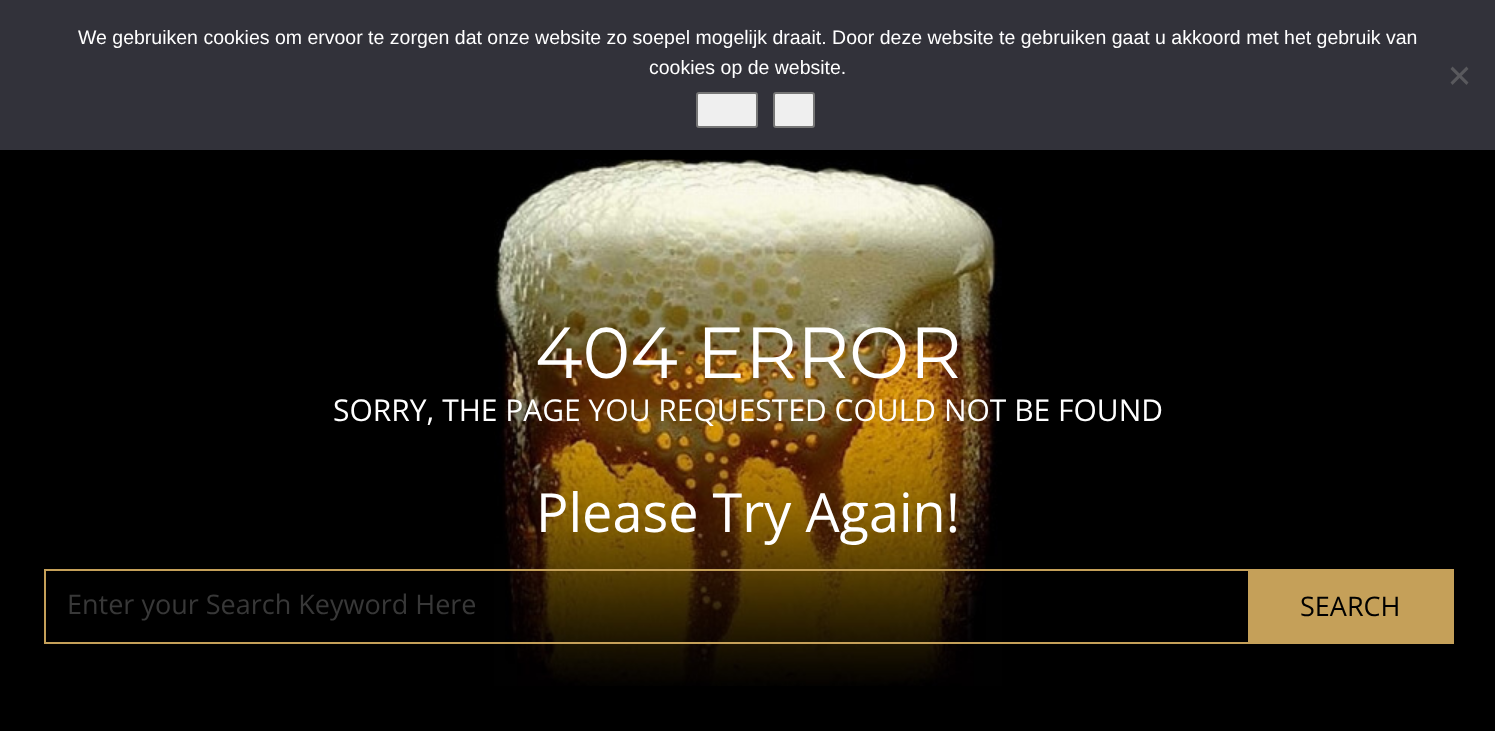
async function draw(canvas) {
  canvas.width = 1495;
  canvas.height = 731;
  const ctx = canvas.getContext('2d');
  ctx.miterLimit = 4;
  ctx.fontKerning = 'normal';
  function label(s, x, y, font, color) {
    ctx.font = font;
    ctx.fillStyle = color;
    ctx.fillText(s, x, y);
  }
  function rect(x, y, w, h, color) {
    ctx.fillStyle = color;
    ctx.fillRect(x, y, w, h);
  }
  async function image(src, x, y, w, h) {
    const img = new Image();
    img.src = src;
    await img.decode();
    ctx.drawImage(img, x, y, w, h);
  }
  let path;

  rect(0, 0, 1495, 731, '#000');
  rect(0, 0, 1495, 150, '#32323a');
  label('We gebruiken cookies om ervoor te zorgen dat onze website zo soepel mogelijk draait. Door deze website te gebruiken gaat u akkoord met het gebruik van', 78, 44, '19.5px Liberation Sans', '#fff');
  label('cookies op de website.', 649, 74, '19.5px Liberation Sans', '#fff');
  ctx.fillStyle = '#59595d';
  path = new Path2D('M1466.5 66.5L1468.5 69L1452.5 85L1450.5 82.5Z');
  ctx.fill(path);
  path = new Path2D('M1450.5 69L1452.5 66.5L1468.5 82.5L1466.5 85Z');
  ctx.fill(path);
  ctx.fillStyle = '#efefef';
  ctx.beginPath();
  ctx.roundRect(697, 93, 60, 34, 2);
  ctx.fill();
  ctx.strokeStyle = '#767676';
  ctx.lineWidth = 2;
  ctx.stroke();
  ctx.beginPath();
  ctx.roundRect(774, 93, 40, 34, 2);
  ctx.fill();
  ctx.stroke();
  await image('assets/img1.png', 494, 159, 508, 527);
  label('404 ERROR', 535, 378, '100 72px Montserrat', '#fff');
  label('SORRY, THE PAGE YOU REQUESTED COULD NOT BE FOUND', 333, 421, '30px Open Sans', '#fff');
  label('Please Try Again!', 536, 532, '54px Open Sans', '#fff');
  ctx.strokeStyle = '#c5a059';
  ctx.strokeRect(45, 570, 1408, 73);
  label('Enter your Search Keyword Here', 67, 614, '27px Open Sans', '#383838');
  rect(1248, 571, 204, 71, '#c5a059');
  label('SEARCH', 1300, 616, '27px Open Sans', '#000');
}

draw(document.querySelector('canvas'));
